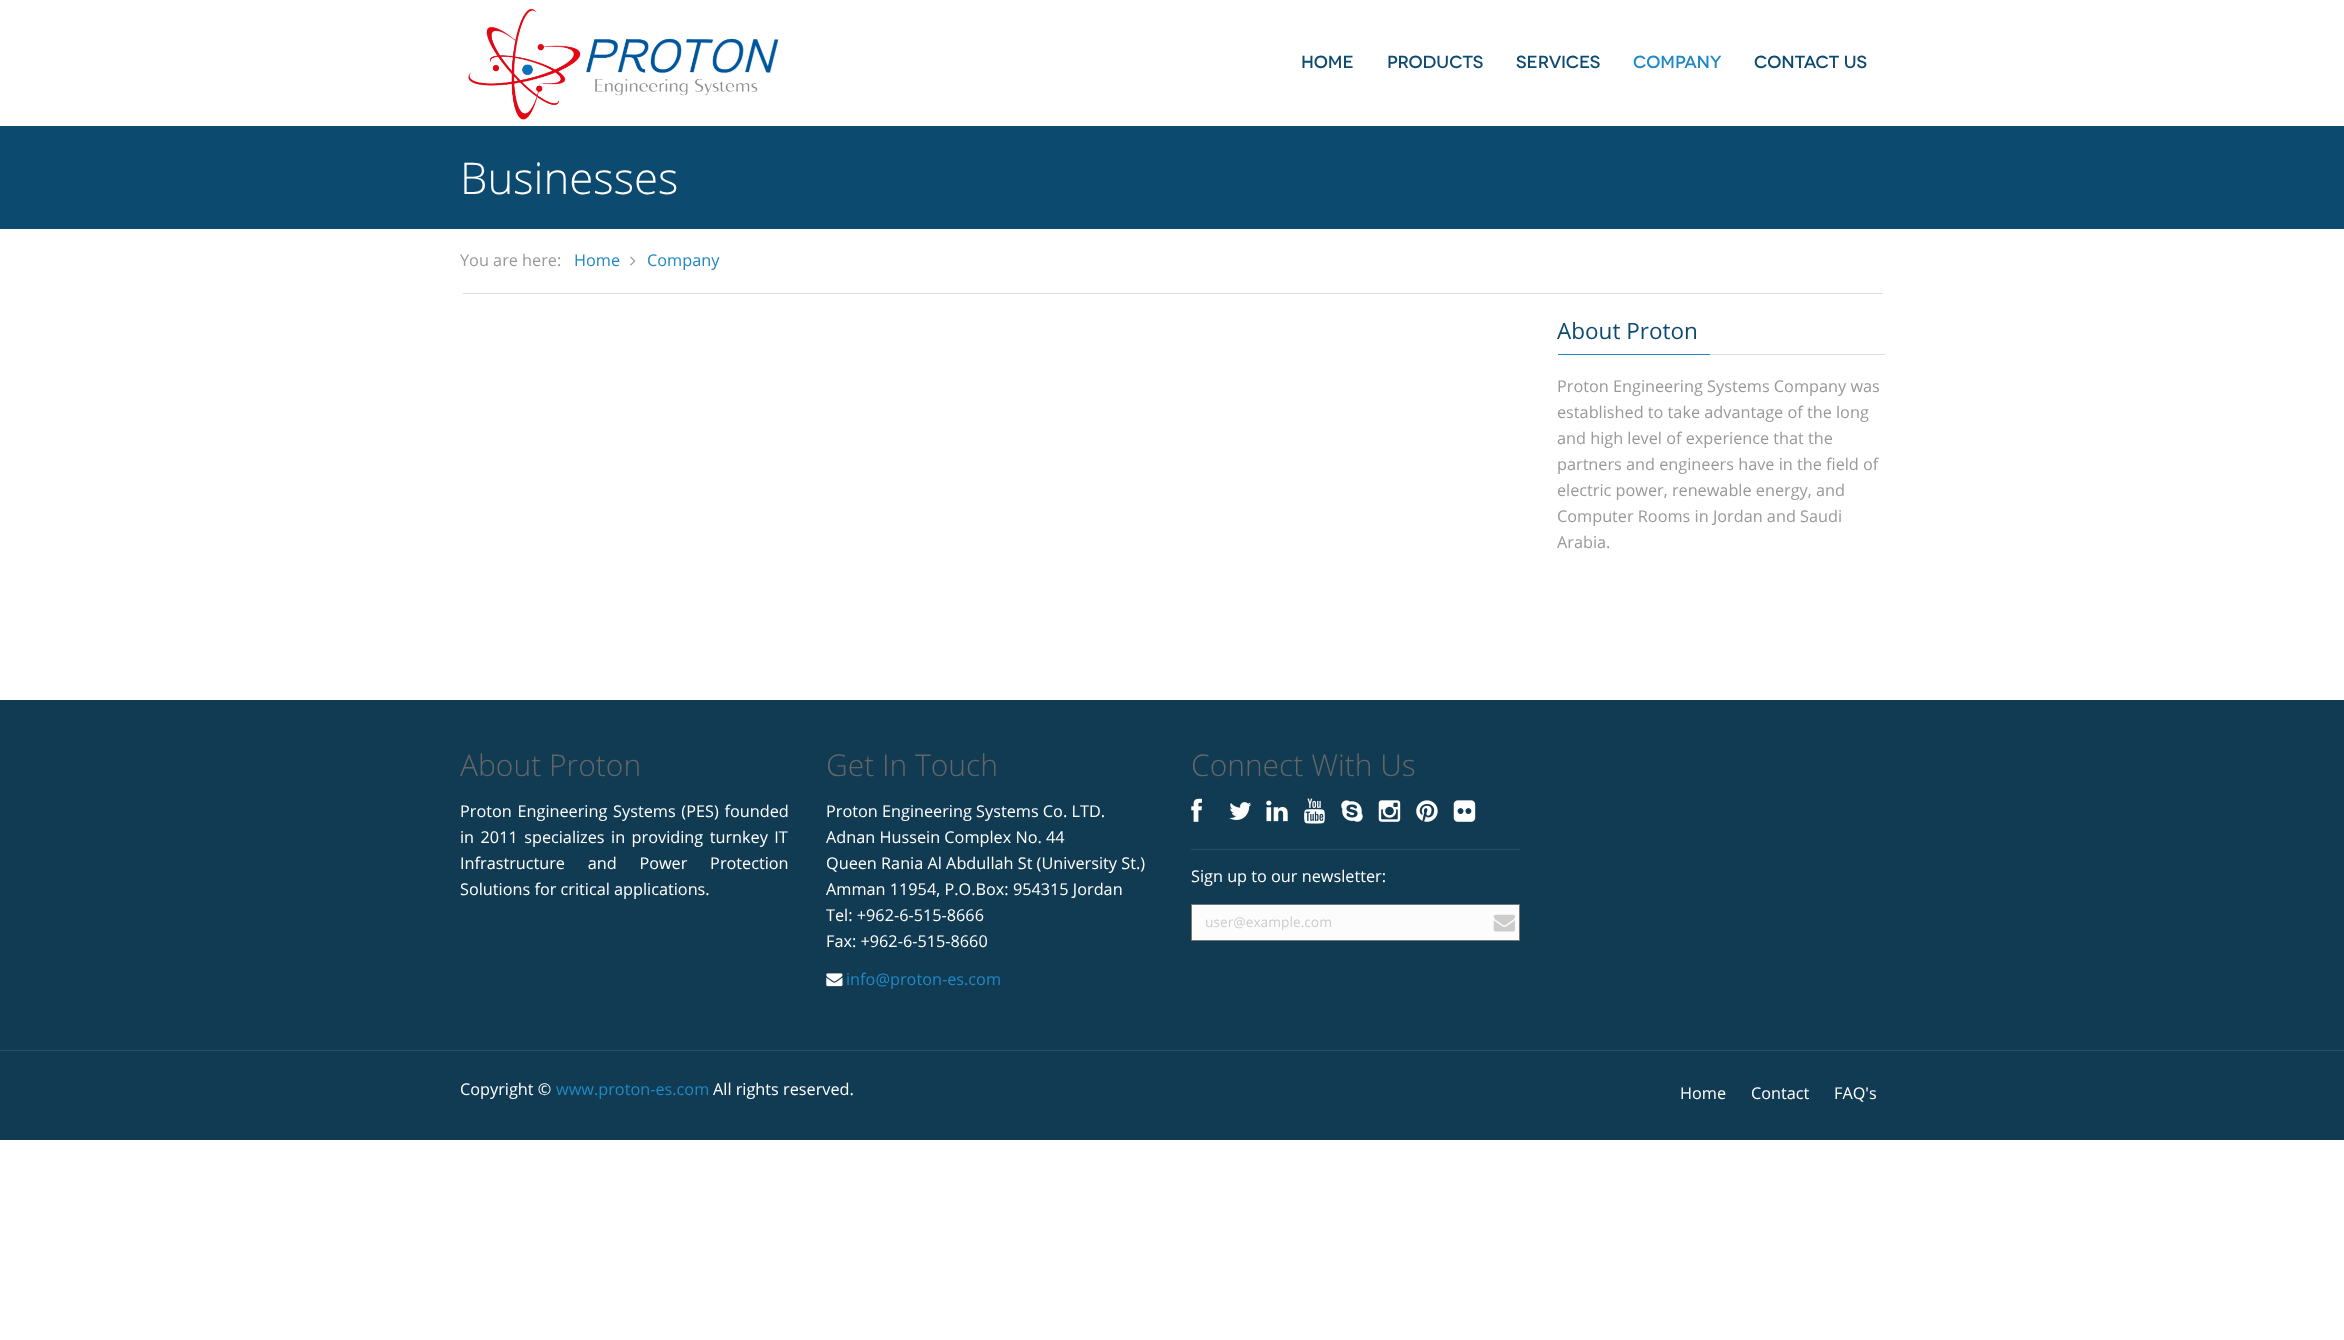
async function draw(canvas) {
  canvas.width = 2344;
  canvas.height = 1340;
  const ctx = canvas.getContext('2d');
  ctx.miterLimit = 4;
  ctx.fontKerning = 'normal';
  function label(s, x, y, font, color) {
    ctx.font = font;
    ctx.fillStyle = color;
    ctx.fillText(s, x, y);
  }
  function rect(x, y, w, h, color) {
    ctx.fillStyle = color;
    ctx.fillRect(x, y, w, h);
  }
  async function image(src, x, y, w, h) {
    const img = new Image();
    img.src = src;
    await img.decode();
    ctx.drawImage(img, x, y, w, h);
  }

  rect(0, 0, 2344, 1340, '#fff');
  await image('assets/img1.png', 468, 8, 311, 112);
  label('HOME', 1301, 68, '600 17.5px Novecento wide', '#0c4a70');
  label('PRODUCTS', 1387, 68, '600 17.5px Novecento wide', '#0c4a70');
  label('SERVICES', 1516, 68, '600 17.5px Novecento wide', '#0c4a70');
  label('COMPANY', 1633, 68, '600 17.5px Novecento wide', '#2088c4');
  label('CONTACT US', 1754, 68, '600 17.5px Novecento wide', '#0c4a70');
  rect(0, 126, 2344, 103, '#0c4a70');
  label('Businesses', 460, 194, '300 43.75px Open Sans', '#fff');
  rect(463, 293, 1420, 1, '#ddd');
  label('You are here:', 460, 266, '16.25px Open Sans', '#999');
  label('Home', 574, 266, '16.25px Open Sans', '#2088c4');
  await image('assets/img2.png', 630, 256, 6, 10);
  label('Company', 647, 266, '16.25px Open Sans', '#2088c4');
  rect(1710, 354, 175, 1, '#ddd');
  rect(1558, 354, 152, 1, '#2088c4');
  label('About Proton', 1557, 339, '22.5px Open Sans', '#0c4a70');
  label('Proton Engineering Systems Company was', 1557, 392, '16.25px Open Sans', '#999');
  label('established to take advantage of the long', 1557, 418, '16.25px Open Sans', '#999');
  label('and high level of experience that the', 1557, 444, '16.25px Open Sans', '#999');
  label('partners and engineers have in the field of', 1557, 470, '16.25px Open Sans', '#999');
  label('electric power, renewable energy, and', 1557, 496, '16.25px Open Sans', '#999');
  label('Computer Rooms in Jordan and Saudi', 1557, 522, '16.25px Open Sans', '#999');
  label('Arabia.', 1557, 548, '16.25px Open Sans', '#999');
  rect(0, 700, 2344, 350, '#113b53');
  label('About Proton', 460, 776, '300 30px Open Sans', '#666');
  ctx.wordSpacing = '1.5px';
  label('Proton Engineering Systems (PES) founded', 460, 817, '16.25px Open Sans', '#fff');
  ctx.wordSpacing = '2.25px';
  label('in 2011 specializes in providing turnkey IT', 460, 843, '16.25px Open Sans', '#fff');
  ctx.wordSpacing = '18.5px';
  label('Infrastructure and Power Protection', 460, 869, '16.25px Open Sans', '#fff');
  ctx.wordSpacing = '0px';
  label('Solutions for critical applications.', 460, 895, '16.25px Open Sans', '#fff');
  label('Get In Touch', 826, 776, '300 30px Open Sans', '#666');
  label('Proton Engineering Systems Co. LTD.', 826, 817, '16.25px Open Sans', '#fff');
  label('Adnan Hussein Complex No. 44', 826, 843, '16.25px Open Sans', '#fff');
  label('Queen Rania Al Abdullah St (University St.)', 826, 869, '16.25px Open Sans', '#fff');
  label('Amman 11954, P.O.Box: 954315 Jordan', 826, 895, '16.25px Open Sans', '#fff');
  label('Tel: +962-6-515-8666', 826, 921, '16.25px Open Sans', '#fff');
  label('Fax: +962-6-515-8660', 826, 947, '16.25px Open Sans', '#fff');
  await image('assets/img3.png', 826, 973, 17, 14);
  label('info@proton-es.com', 846, 985, '16.25px Open Sans', '#2088c4');
  label('Connect With Us', 1191, 776, '300 30px Open Sans', '#666');
  await image('assets/img4.png', 1191, 798, 11, 24);
  await image('assets/img5.png', 1229, 802, 23, 18);
  await image('assets/img6.png', 1266, 800, 22, 22);
  await image('assets/img7.png', 1304, 798, 21, 26);
  await image('assets/img8.png', 1341, 800, 22, 22);
  await image('assets/img9.png', 1378, 800, 23, 22);
  await image('assets/img10.png', 1416, 800, 22, 22);
  await image('assets/img11.png', 1453, 800, 23, 22);
  rect(1191, 849, 329, 1, '#294f64');
  label('Sign up to our newsletter:', 1191, 882, '16.25px Open Sans', '#fff');
  ctx.fillStyle = '#fcfcfc';
  ctx.beginPath();
  ctx.rect(1191.5, 904.5, 328, 36);
  ctx.fill();
  ctx.strokeStyle = '#777';
  ctx.stroke();
  label('user@example.com', 1205, 927, '13.75px Open Sans', '#ccc');
  await image('assets/img12.png', 1493, 914, 22, 18);
  rect(0, 1051, 2344, 89, '#113b53');
  rect(0, 1050, 2344, 1, '#294f64');
  label('Copyright ©', 460, 1095, '16.25px Open Sans', '#fff');
  label('www.proton-es.com', 556, 1095, '16.25px Open Sans', '#2088c4');
  label('All rights reserved.', 713, 1095, '16.25px Open Sans', '#fff');
  label('Home', 1680, 1099, '16.25px Open Sans', '#fff');
  label('Contact', 1751, 1099, '16.25px Open Sans', '#fff');
  label('FAQ\'s', 1834, 1099, '16.25px Open Sans', '#fff');
}

draw(document.querySelector('canvas'));
